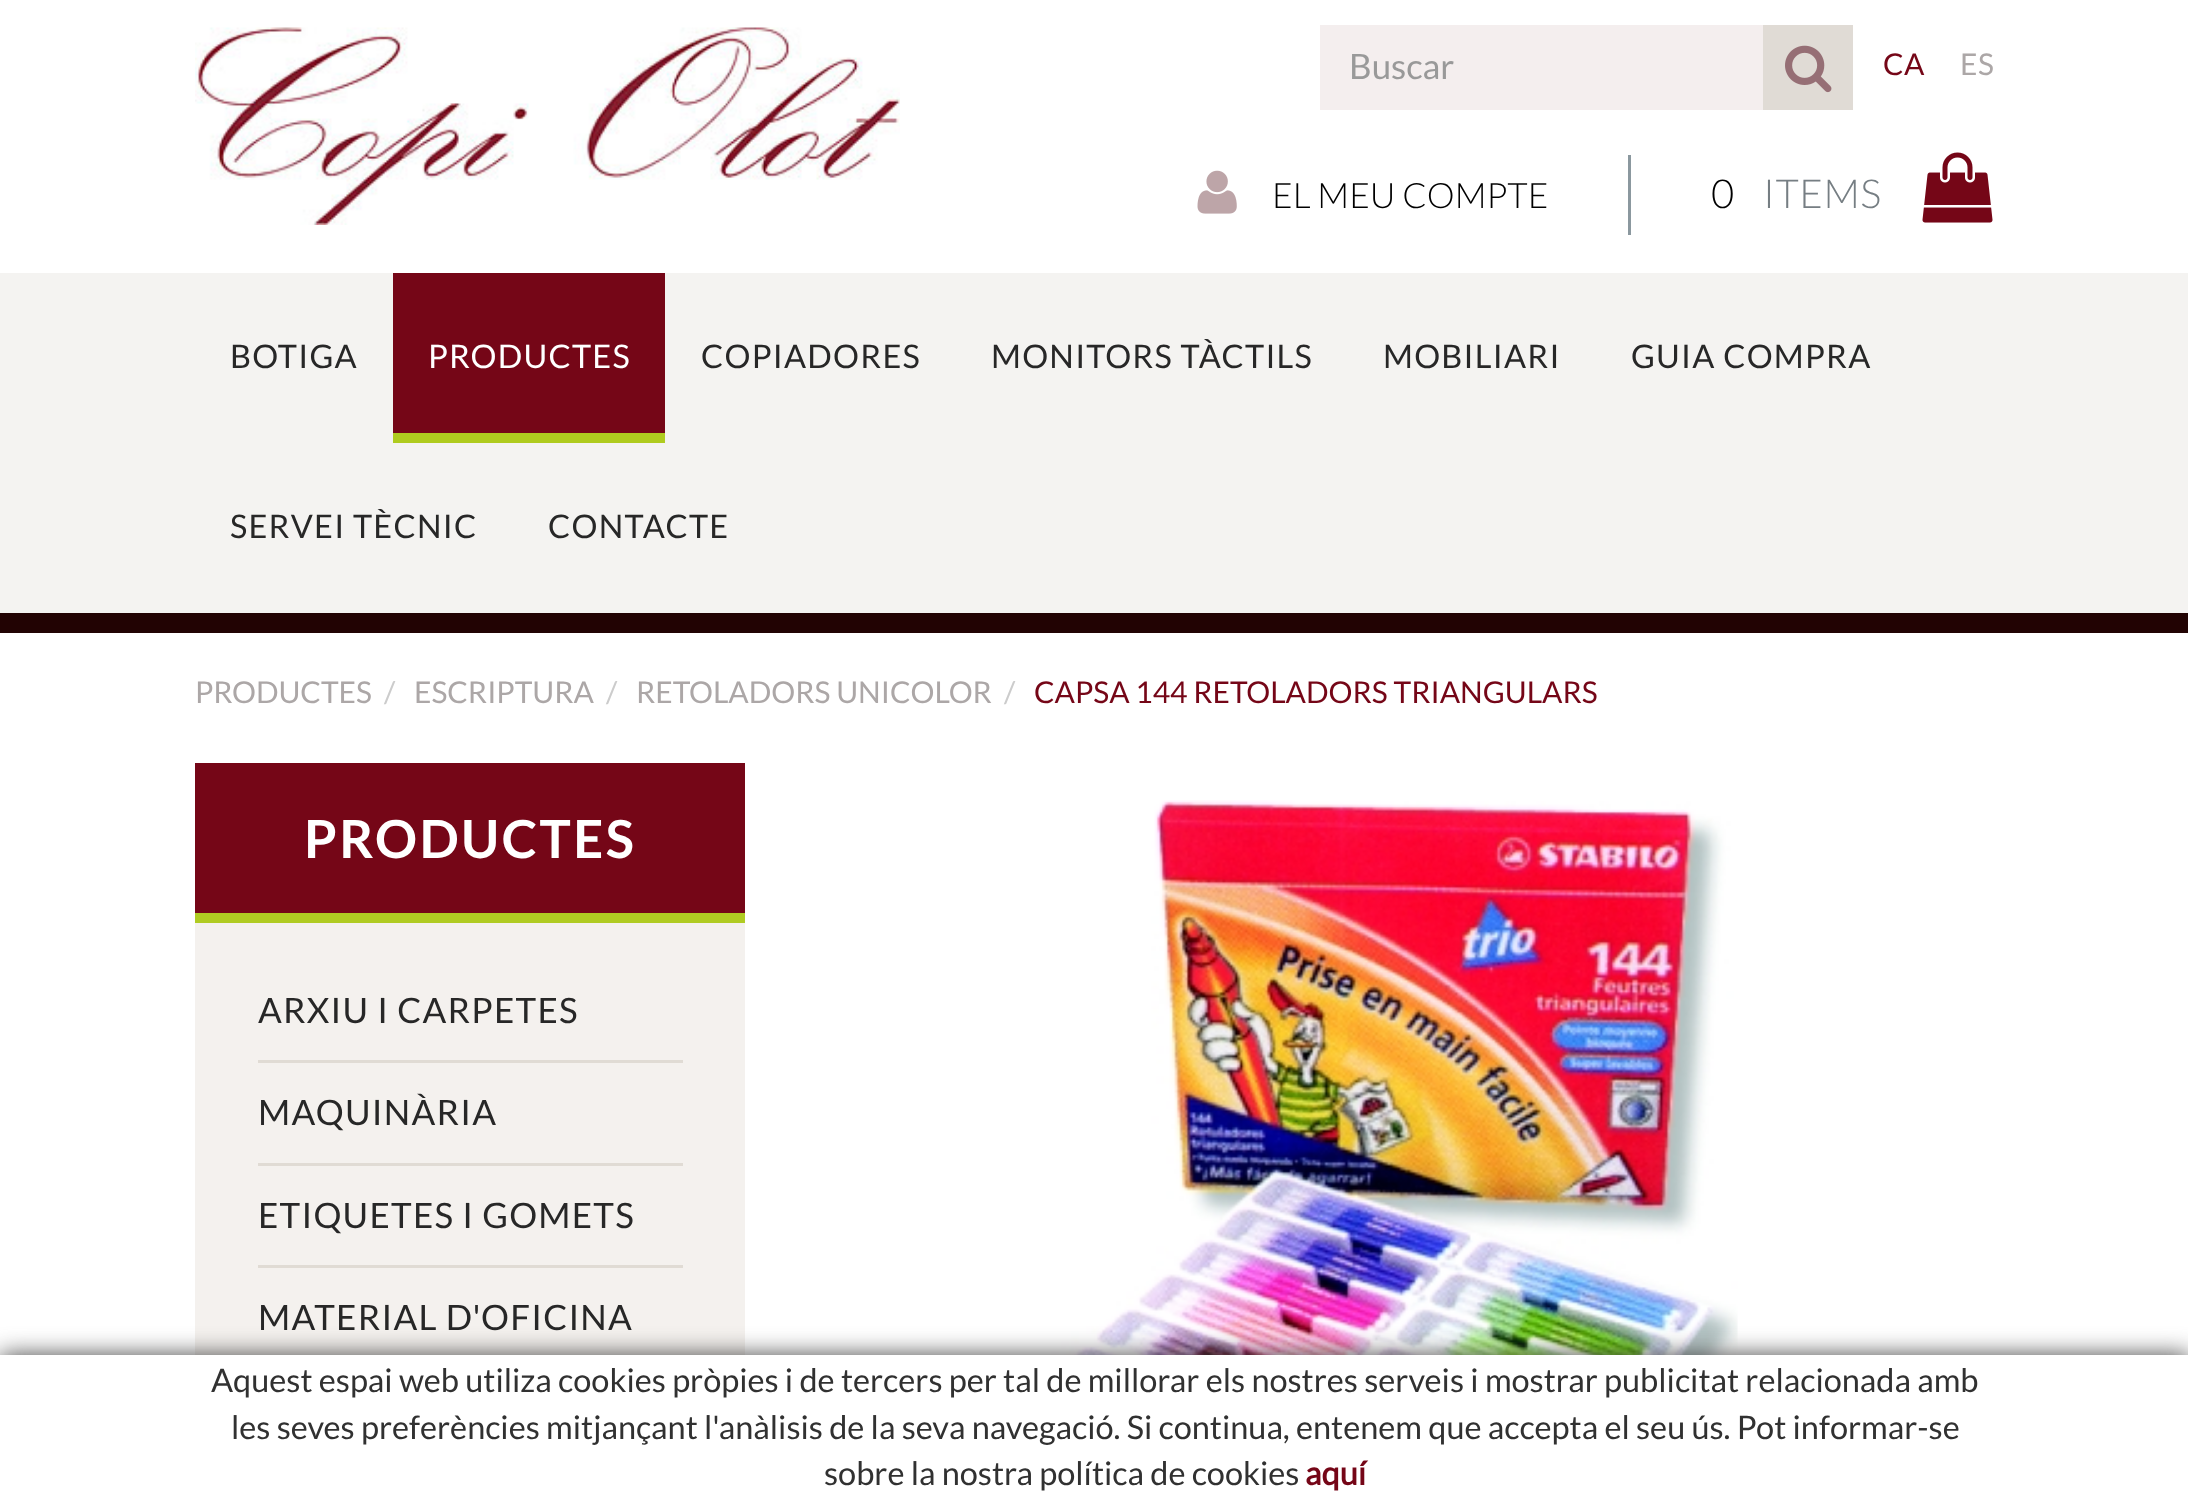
async function draw(canvas) {
  canvas.width = 2188;
  canvas.height = 1500;
  const ctx = canvas.getContext('2d');
  ctx.miterLimit = 4;
  ctx.fontKerning = 'normal';
  function label(s, x, y, font, color) {
    ctx.font = font;
    ctx.fillStyle = color;
    ctx.fillText(s, x, y);
  }
  function rect(x, y, w, h, color) {
    ctx.fillStyle = color;
    ctx.fillRect(x, y, w, h);
  }
  async function image(src, x, y, w, h) {
    const img = new Image();
    img.src = src;
    await img.decode();
    ctx.drawImage(img, x, y, w, h);
  }

  rect(0, 0, 2188, 1500, '#fff');
  await image('assets/img1.png', 195, 27, 705, 198);
  rect(1320, 25, 443, 85, '#f4eeee');
  label('Buscar', 1349, 79, '35px Lato', '#999');
  rect(1763, 25, 90, 85, '#e0dbd5');
  await image('assets/img2.png', 1785, 45, 47, 48);
  ctx.letterSpacing = '0.5px';
  label('CA', 1883, 75, '30px Lato', '#750617');
  label('ES', 1960, 75, '30px Lato', '#aca7a7');
  rect(1628, 155, 3, 80, '#8b989f');
  await image('assets/img3.png', 1197, 170, 40, 44);
  ctx.letterSpacing = '0px';
  label('EL MEU COMPTE', 1272, 208, '300 35px Lato', '#000');
  ctx.letterSpacing = '0.5px';
  label('0', 1711, 208, '300 40px Lato', '#000');
  label('ITEMS', 1763, 208, '300 40px Lato', '#767e83');
  await image('assets/img4.png', 1922, 152, 71, 71);
  rect(0, 273, 2188, 340, '#f4f3f1');
  rect(0, 613, 2188, 20, '#220303');
  ctx.letterSpacing = '1.25px';
  label('BOTIGA', 230, 368, '32.5px Lato', '#272727');
  rect(393, 273, 272, 160, '#750617');
  rect(393, 433, 272, 10, '#afcb1f');
  label('PRODUCTES', 428, 368, '32.5px Lato', '#fff');
  label('COPIADORES', 701, 368, '32.5px Lato', '#272727');
  label('MONITORS TÀCTILS', 991, 368, '32.5px Lato', '#272727');
  label('MOBILIARI', 1383, 368, '32.5px Lato', '#272727');
  label('GUIA COMPRA', 1631, 368, '32.5px Lato', '#272727');
  label('SERVEI TÈCNIC', 230, 538, '32.5px Lato', '#272727');
  label('CONTACTE', 548, 538, '32.5px Lato', '#272727');
  ctx.letterSpacing = '0px';
  label('PRODUCTES', 195, 703, '30px Lato', '#aca7a7');
  label('/', 384, 703, '30px Lato', '#ccc');
  label('ESCRIPTURA', 414, 703, '30px Lato', '#aca7a7');
  label('/', 606, 703, '30px Lato', '#ccc');
  label('RETOLADORS UNICOLOR', 636, 703, '30px Lato', '#aca7a7');
  label('/', 1004, 703, '30px Lato', '#ccc');
  label('CAPSA 144 RETOLADORS TRIANGULARS', 1034, 703, '30px Lato', '#750617');
  rect(195, 923, 550, 432, '#f4f1ee');
  rect(195, 763, 550, 150, '#750617');
  rect(195, 913, 550, 10, '#b0cb22');
  ctx.letterSpacing = '2.5px';
  label('PRODUCTES', 304, 858, 'bold 52.5px Lato', '#fff');
  rect(258, 1060, 425, 3, '#e0dbd4');
  ctx.letterSpacing = '1.25px';
  label('ARXIU I CARPETES', 258, 1023, '35px Lato', '#272727');
  rect(258, 1163, 425, 3, '#e0dbd4');
  label('MAQUINÀRIA', 258, 1125, '35px Lato', '#272727');
  rect(258, 1265, 425, 3, '#e0dbd4');
  label('ETIQUETES I GOMETS', 258, 1228, '35px Lato', '#272727');
  label('MATERIAL D\'OFICINA', 258, 1330, '35px Lato', '#272727');
  await image('assets/img5.png', 1039, 800, 699, 555);
  ctx.fillStyle = '#444';
  ctx.filter = 'blur(12.5px)';
  ctx.beginPath();
  ctx.rect(0, 1355, 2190, 145);
  ctx.fill();
  ctx.filter = 'none';
  rect(0, 1355, 2188, 145, '#fff');
  ctx.letterSpacing = '0px';
  label('Aquest espai web utiliza cookies pròpies i de tercers per tal de millorar els nostres serveis i mostrar publicitat relacionada amb', 211, 1392, '32.5px Lato', '#313131');
  label('les seves preferències mitjançant l\'anàlisis de la seva navegació. Si continua, entenem que accepta el seu ús. Pot informar-se', 231, 1439, '32.5px Lato', '#313131');
  label('sobre la nostra política de cookies', 824, 1485, '32.5px Lato', '#313131');
  label('aquí', 1305, 1485, 'bold 32.5px "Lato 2"', '#750617');
}

draw(document.querySelector('canvas'));
